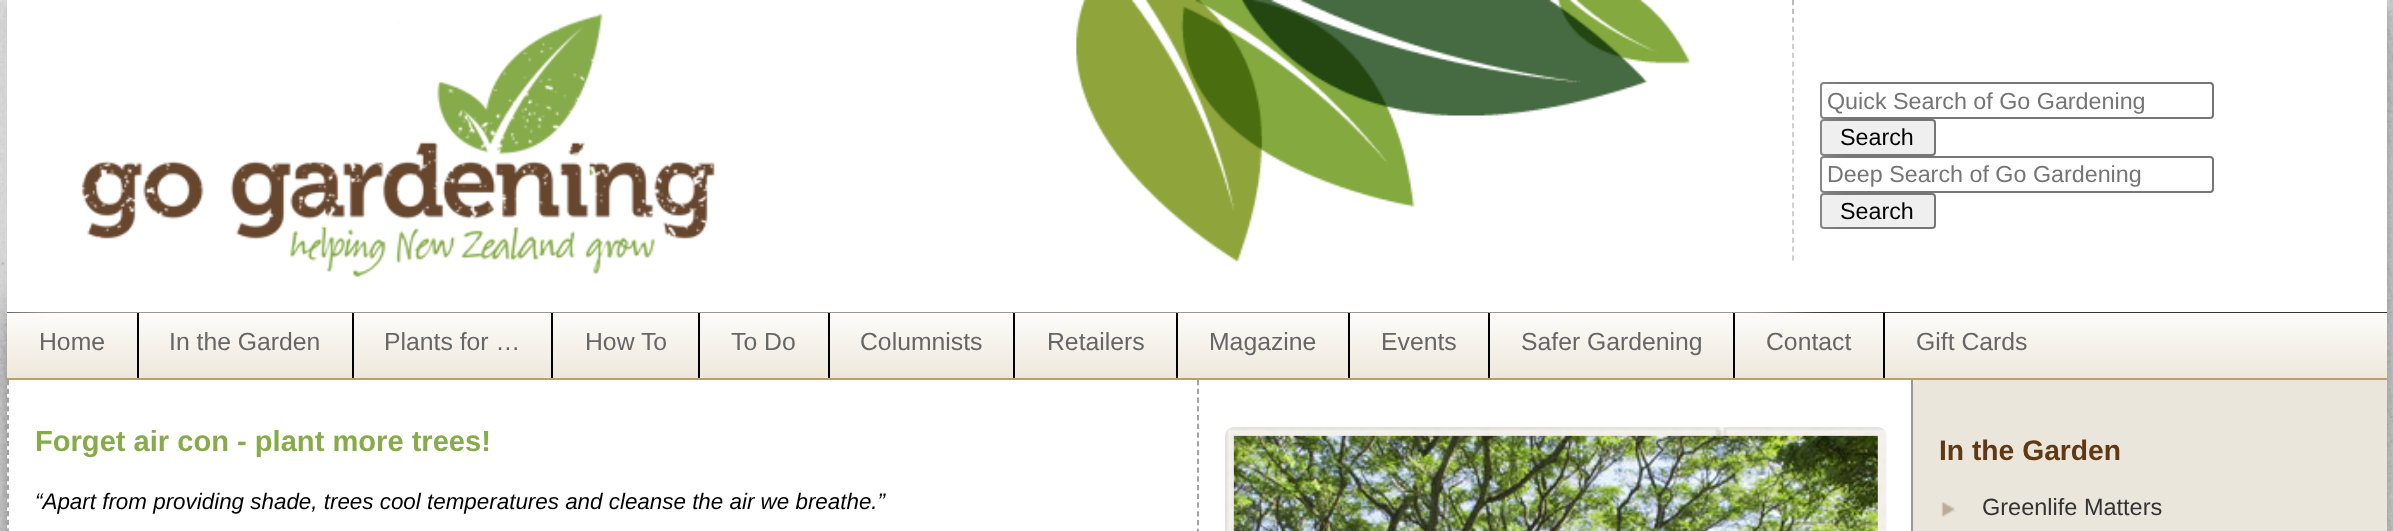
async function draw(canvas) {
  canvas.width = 2393;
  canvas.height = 531;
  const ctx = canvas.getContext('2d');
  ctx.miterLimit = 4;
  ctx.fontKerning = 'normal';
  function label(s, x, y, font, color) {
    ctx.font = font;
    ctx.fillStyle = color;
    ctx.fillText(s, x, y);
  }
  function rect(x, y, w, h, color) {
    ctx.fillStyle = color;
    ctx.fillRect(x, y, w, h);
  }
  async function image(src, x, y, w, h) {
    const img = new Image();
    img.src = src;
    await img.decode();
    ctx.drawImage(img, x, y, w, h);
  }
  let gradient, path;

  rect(0, 0, 2393, 531, '#fff');
  await image('assets/img1.png', 0, 0, 2393, 531);
  ctx.fillStyle = '#00000080';
  ctx.filter = 'blur(17.5px)';
  ctx.beginPath();
  ctx.roundRect(7, 0, 2380, 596, 12);
  ctx.fill();
  ctx.filter = 'none';
  rect(7, 0, 2380, 531, '#fff');
  rect(7, 312, 2380, 1, '#333');
  path = new Path2D('M1793 0V261');
  ctx.strokeStyle = '#999';
  ctx.lineWidth = 1.8;
  ctx.setLineDash([5.25, 3.55]);
  ctx.stroke(path);
  ctx.beginPath();
  ctx.roundRect(1821, 83, 392, 35, 3);
  ctx.strokeStyle = '#767676';
  ctx.lineWidth = 2;
  ctx.setLineDash([]);
  ctx.stroke();
  ctx.fillStyle = '#efefef';
  ctx.beginPath();
  ctx.roundRect(1821, 120, 114, 35, 3);
  ctx.fill();
  ctx.stroke();
  ctx.beginPath();
  ctx.roundRect(1821, 157, 392, 35, 3);
  ctx.stroke();
  ctx.beginPath();
  ctx.roundRect(1821, 194, 114, 34, 3);
  ctx.fill();
  ctx.stroke();
  path = new Path2D('M8 380V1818');
  ctx.strokeStyle = '#999';
  ctx.lineWidth = 1.8;
  ctx.setLineDash([5.25, 3.48]);
  ctx.stroke(path);
  path = new Path2D('M1198 380V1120');
  ctx.setLineDash([5.25, 3.5]);
  ctx.stroke(path);
  ctx.save();
  path = new Path2D('M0 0H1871V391H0ZM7 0H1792V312H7Z');
  ctx.clip(path, 'evenodd');
  ctx.fillStyle = '#fff';
  ctx.filter = 'blur(26px)';
  ctx.beginPath();
  ctx.rect(7, 0, 1785, 312);
  ctx.fill();
  ctx.filter = 'none';
  ctx.restore();
  await image('assets/img2.png', 81, 0, 1610, 277);
  label('Quick Search of Go Gardening', 1827, 109, '23.3px Liberation Sans', '#757575');
  label('Search', 1840, 145, '23.3px Liberation Sans', '#000');
  label('Deep Search of Go Gardening', 1827, 182, '23.3px Liberation Sans', '#757575');
  label('Search', 1840, 219, '23.3px Liberation Sans', '#000');
  gradient = ctx.createLinearGradient(1197, 313, 1197, 378);
  gradient.addColorStop(0, '#fdfcfa');
  gradient.addColorStop(1, '#eee8db');
  ctx.fillStyle = gradient;
  ctx.fillRect(7, 313, 2380, 65);
  rect(7, 378, 2380, 2, '#b99f6a');
  label('Home', 39, 350, '24.75px Liberation Sans', '#666');
  rect(137, 313, 2, 65, '#000');
  label('In the Garden', 169, 350, '24.75px Liberation Sans', '#666');
  rect(352, 313, 2, 65, '#000');
  label('Plants for …', 384, 350, '24.75px Liberation Sans', '#666');
  rect(551, 313, 2, 65, '#000');
  label('How To', 585, 350, '24.75px Liberation Sans', '#666');
  rect(698, 313, 2, 65, '#000');
  label('To Do', 731, 350, '24.75px Liberation Sans', '#666');
  rect(828, 313, 2, 65, '#000');
  label('Columnists', 860, 350, '24.75px Liberation Sans', '#666');
  rect(1013, 313, 2, 65, '#000');
  label('Retailers', 1047, 350, '24.75px Liberation Sans', '#666');
  rect(1176, 313, 2, 65, '#000');
  label('Magazine', 1209, 350, '24.75px Liberation Sans', '#666');
  rect(1348, 313, 2, 65, '#000');
  label('Events', 1381, 350, '24.75px Liberation Sans', '#666');
  rect(1488, 313, 2, 65, '#000');
  label('Safer Gardening', 1521, 350, '24.75px Liberation Sans', '#666');
  rect(1733, 313, 2, 65, '#000');
  label('Contact', 1766, 350, '24.75px Liberation Sans', '#666');
  rect(1883, 313, 2, 65, '#000');
  label('Gift Cards', 1916, 350, '24.75px Liberation Sans', '#666');
  label('Forget air con - plant more trees!', 35, 451, 'bold 29.1px Liberation Sans', '#87ab49');
  label('“Apart from providing shade, trees cool temperatures and cleanse the air we breathe.”', 35, 509, 'italic 22.4px Liberation Sans', '#000');
  await image('assets/img3.png', 1225, 427, 662, 104);
  await image('assets/img4.png', 1233, 435, 645, 96);
  rect(1913, 380, 474, 151, '#eae6dc');
  rect(1911, 380, 2, 151, '#999');
  label('In the Garden', 1939, 460, 'bold 28.25px Liberation Sans', '#603913');
  await image('assets/img5.png', 1941, 502, 14, 15);
  label('Greenlife Matters', 1982, 515, '23.5px Liberation Sans', '#333');
}

draw(document.querySelector('canvas'));
